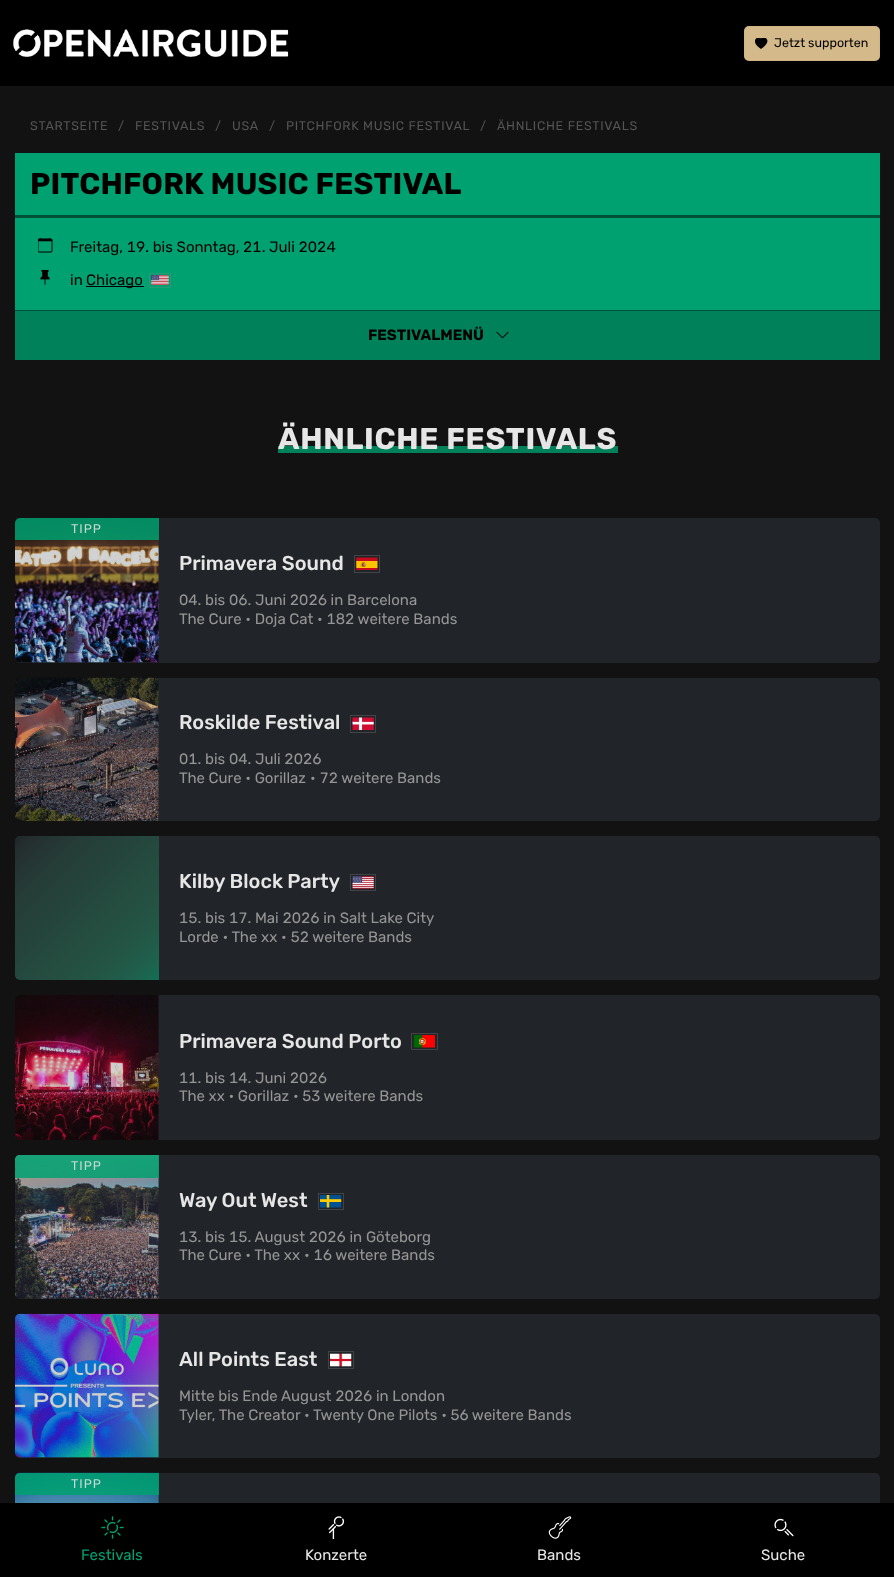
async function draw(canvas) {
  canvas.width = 894;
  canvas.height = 1577;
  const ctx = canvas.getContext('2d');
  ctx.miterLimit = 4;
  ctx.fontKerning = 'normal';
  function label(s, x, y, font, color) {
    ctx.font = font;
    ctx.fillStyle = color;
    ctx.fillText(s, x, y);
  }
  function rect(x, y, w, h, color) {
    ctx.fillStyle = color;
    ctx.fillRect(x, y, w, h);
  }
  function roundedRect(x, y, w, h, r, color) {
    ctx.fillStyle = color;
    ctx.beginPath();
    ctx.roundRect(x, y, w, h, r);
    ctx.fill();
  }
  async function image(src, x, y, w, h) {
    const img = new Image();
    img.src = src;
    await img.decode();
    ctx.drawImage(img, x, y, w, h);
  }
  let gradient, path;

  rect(0, 0, 894, 1577, '#121212');
  rect(0, 0, 894, 86, '#000');
  await image('assets/img1.png', 13, 29, 276, 29);
  roundedRect(744, 26, 136, 35, 5, '#d4b98b');
  ctx.beginPath();
  ctx.roundRect(744.5, 26.5, 135, 34, 4.5);
  ctx.strokeStyle = '#c9a86e4d';
  ctx.stroke();
  ctx.save();
  ctx.beginPath();
  ctx.rect(755, 38, 13, 12);
  ctx.clip();
  ctx.fillStyle = '#000';
  path = new Path2D('M761 38.5C764.5 35 773.5 41 761 49C749 41 758 35 761 38.5Z');
  ctx.fill(path, 'evenodd');
  ctx.restore();
  label('Jetzt supporten', 774, 47, '12.5px Rubik', '#000');
  roundedRect(15, 1473, 865, 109, 5, '#212529');
  rect(0, 1503, 894, 74, '#000');
  await image('assets/img2.png', 101, 1516, 23, 23);
  label('Festivals', 81, 1560, '15px Rubik', '#00a170');
  await image('assets/img3.png', 328, 1516, 17, 23);
  label('Konzerte', 305, 1560, '15px Rubik', '#e6e6e6');
  await image('assets/img4.png', 548, 1516, 24, 23);
  label('Bands', 537, 1560, '15px Rubik', '#e6e6e6');
  await image('assets/img5.png', 774, 1518, 20, 19);
  label('Suche', 761, 1560, '15px Rubik', '#e6e6e6');
  ctx.letterSpacing = '0.7px';
  label('STARTSEITE', 30, 130, '12.5px Rubik', '#545454');
  label('/', 118, 130, '12.5px Rubik', '#545454');
  label('FESTIVALS', 135, 130, '12.5px Rubik', '#545454');
  label('/', 215, 130, '12.5px Rubik', '#545454');
  label('USA', 232, 130, '12.5px Rubik', '#545454');
  label('/', 269, 130, '12.5px Rubik', '#545454');
  label('PITCHFORK MUSIC FESTIVAL', 286, 130, '12.5px Rubik', '#545454');
  label('/', 480, 130, '12.5px Rubik', '#545454');
  label('ÄHNLICHE FESTIVALS', 497, 130, '12.5px Rubik', '#545454');
  rect(15, 153, 865, 157, '#00a170');
  rect(15, 215, 865, 3, '#005138');
  ctx.letterSpacing = '0.2px';
  label('PITCHFORK MUSIC FESTIVAL', 30, 194, 'bold 30px Rubik', '#000');
  await image('assets/img6.png', 38, 238, 15, 15);
  ctx.letterSpacing = '0px';
  label('Freitag, 19. bis Sonntag, 21. Juli 2024', 70, 252, '15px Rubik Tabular', '#000');
  await image('assets/img7.png', 40, 270, 10, 15);
  label('in', 70, 285, '15px Rubik', '#000');
  rect(86, 286, 58, 1, '#000');
  label('Chicago', 86, 285, '15px Rubik', '#000');
  ctx.strokeStyle = '#299a78';
  ctx.strokeRect(149.5, 273.5, 21, 14);
  await image('assets/img8.png', 151, 275, 18, 10);
  rect(15, 311, 865, 49, '#00815a');
  rect(15, 310, 865, 1, '#005138');
  label('FESTIVALMENÜ', 368, 340, 'bold 15px Rubik', '#000');
  await image('assets/img9.png', 496, 331, 13, 8);
  rect(278, 446, 340, 7, '#00815a');
  ctx.letterSpacing = '0.7px';
  label('ÄHNLICHE FESTIVALS', 278, 449, 'bold 30px Rubik', '#e6e6e6');
  roundedRect(15, 518, 865, 145, 5, '#212529');
  await image('assets/img10.png', 15, 518, 144, 145);
  ctx.fillStyle = '#00a170d9';
  ctx.beginPath();
  ctx.roundRect(15, 518, 144, 22, [5, 0, 0, 0]);
  ctx.fill();
  ctx.letterSpacing = '1px';
  label('TIPP', 71, 533, '12.5px Rubik', '#c4d9d2');
  ctx.letterSpacing = '0px';
  label('Primavera Sound', 179, 570, '500 20px Rubik', '#e6e6e6');
  ctx.strokeStyle = '#414346';
  ctx.strokeRect(354.5, 555.5, 25, 17);
  await image('assets/img11.png', 356, 557, 22, 13);
  label('04. bis 06. Juni 2026 in Barcelona', 179, 605, '15px Rubik Tabular', '#959595');
  label('The Cure • Doja Cat', 179, 624, '15px Rubik', '#959595');
  label('• 182 weitere Bands', 317, 624, '15px Rubik Tabular', '#959595');
  roundedRect(15, 678, 865, 143, 5, '#212529');
  await image('assets/img12.png', 15, 677, 144, 145);
  label('Roskilde Festival', 179, 729, '500 20px Rubik', '#e6e6e6');
  ctx.strokeRect(350.5, 715.5, 25, 17);
  await image('assets/img13.png', 352, 717, 22, 13);
  label('01. bis 04. Juli 2026', 179, 764, '15px Rubik Tabular', '#959595');
  label('The Cure • Gorillaz', 179, 783, '15px Rubik', '#959595');
  label('• 72 weitere Bands', 310, 783, '15px Rubik Tabular', '#959595');
  roundedRect(15, 836, 865, 144, 5, '#212529');
  gradient = ctx.createLinearGradient(159, 980, 15, 836);
  gradient.addColorStop(0, '#00a37299');
  gradient.addColorStop(0.05, '#16926999');
  gradient.addColorStop(0.12, '#1f846199');
  gradient.addColorStop(0.23, '#24755799');
  gradient.addColorStop(0.39, '#27685099');
  gradient.addColorStop(0.59, '#27594799');
  gradient.addColorStop(0.75, '#284d4199');
  gradient.addColorStop(0.87, '#273f3999');
  gradient.addColorStop(0.95, '#24323199');
  gradient.addColorStop(1, '#22262a99');
  ctx.fillStyle = gradient;
  ctx.beginPath();
  ctx.roundRect(15, 836, 144, 144, [5, 0, 0, 5]);
  ctx.fill();
  label('Kilby Block Party', 179, 888, '500 20px Rubik', '#e6e6e6');
  ctx.strokeRect(350.5, 874.5, 25, 16);
  await image('assets/img14.png', 352, 876, 22, 13);
  label('15. bis 17. Mai 2026 in Salt Lake City', 179, 923, '15px Rubik Tabular', '#959595');
  label('Lorde • The xx', 179, 942, '15px Rubik', '#959595');
  label('• 52 weitere Bands', 281, 942, '15px Rubik Tabular', '#959595');
  roundedRect(15, 995, 865, 145, 5, '#212529');
  await image('assets/img15.png', 15, 995, 144, 145);
  label('Primavera Sound Porto', 179, 1048, '500 20px Rubik', '#e6e6e6');
  ctx.strokeRect(411.5, 1033.5, 26, 16);
  await image('assets/img16.png', 413, 1035, 22, 13);
  label('11. bis 14. Juni 2026', 179, 1083, '15px Rubik Tabular', '#959595');
  label('The xx • Gorillaz • 53 weitere Bands', 179, 1101, '15px Rubik', '#959595');
  roundedRect(15, 1155, 865, 144, 5, '#212529');
  await image('assets/img17.png', 15, 1155, 144, 144);
  ctx.fillStyle = '#00a170d9';
  ctx.beginPath();
  ctx.roundRect(15, 1155, 144, 23, [5, 0, 0, 0]);
  ctx.fill();
  ctx.letterSpacing = '1px';
  label('TIPP', 71, 1170, '12.5px Rubik', '#c4d9d2');
  ctx.letterSpacing = '0px';
  label('Way Out West', 179, 1207, '500 20px Rubik', '#e6e6e6');
  ctx.strokeRect(318.5, 1193.5, 25, 16);
  await image('assets/img18.png', 320, 1195, 22, 13);
  label('13. bis 15. August 2026 in Göteborg', 179, 1242, '15px Rubik Tabular', '#959595');
  label('The Cure • The xx', 179, 1260, '15px Rubik', '#959595');
  label('• 16 weitere Bands', 304, 1260, '15px Rubik Tabular', '#959595');
  roundedRect(15, 1314, 865, 144, 5, '#212529');
  await image('assets/img19.png', 15, 1313, 144, 145);
  label('All Points East', 179, 1366, '500 20px Rubik', '#e6e6e6');
  ctx.strokeRect(328.5, 1351.5, 25, 17);
  await image('assets/img20.png', 330, 1353, 22, 14);
  label('Mitte bis Ende August 2026 in London', 179, 1401, '15px Rubik Tabular', '#959595');
  label('Tyler, The Creator • Twenty One Pilots • 56 weitere Bands', 179, 1420, '15px Rubik', '#959595');
  await image('assets/img21.png', 15, 1472, 144, 31);
  ctx.fillStyle = '#00a170d9';
  ctx.beginPath();
  ctx.roundRect(15, 1473, 144, 22, [5, 0, 0, 0]);
  ctx.fill();
  ctx.letterSpacing = '1px';
  label('TIPP', 71, 1488, '12.5px Rubik', '#c4d9d2');
}

draw(document.querySelector('canvas'));
